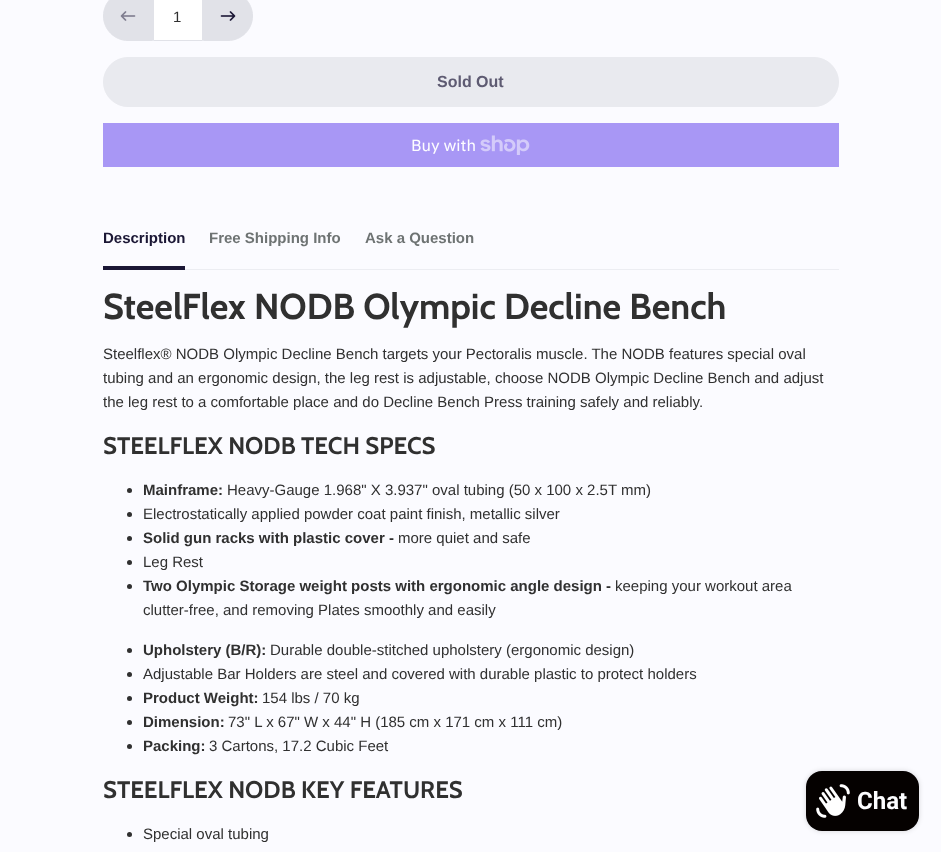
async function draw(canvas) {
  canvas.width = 941;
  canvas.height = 852;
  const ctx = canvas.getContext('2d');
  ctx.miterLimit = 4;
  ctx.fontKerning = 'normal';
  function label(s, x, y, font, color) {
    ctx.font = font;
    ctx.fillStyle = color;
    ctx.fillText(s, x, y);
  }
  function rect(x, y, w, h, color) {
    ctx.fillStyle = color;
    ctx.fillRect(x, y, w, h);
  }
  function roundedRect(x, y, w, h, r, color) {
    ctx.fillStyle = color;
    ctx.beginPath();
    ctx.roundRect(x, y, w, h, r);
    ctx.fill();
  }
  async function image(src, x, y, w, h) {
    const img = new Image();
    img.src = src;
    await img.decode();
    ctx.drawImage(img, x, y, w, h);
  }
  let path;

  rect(0, 0, 941, 852, '#fbfbff');
  ctx.fillStyle = '#e1e2e8';
  path = new Path2D('M128-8.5H152.5V40.5H128C114.5 40.5 103.5 29.5 103.5 16C103.5 2.5 114.5-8.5 128-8.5Z');
  ctx.fill(path);
  ctx.strokeStyle = '#e1e2e8';
  ctx.stroke(path);
  await image('assets/img1.png', 120, 11, 16, 10);
  ctx.fillStyle = '#fff';
  ctx.beginPath();
  ctx.rect(153.5, -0.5, 49, 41);
  ctx.fill();
  ctx.stroke();
  label('1', 173, 22, '15px Liberation Sans', '#303030');
  ctx.fillStyle = '#e1e2e8';
  path = new Path2D('M203.5-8.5H228C241.5-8.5 252.5 2.5 252.5 16C252.5 29.5 241.5 40.5 228 40.5H203.5Z');
  ctx.fill(path);
  ctx.stroke(path);
  await image('assets/img2.png', 220, 11, 16, 10);
  ctx.fillStyle = '#e9eaef';
  ctx.beginPath();
  ctx.roundRect(103.5, 57.5, 735, 49, 24.5);
  ctx.fill();
  ctx.strokeStyle = '#e9eaef';
  ctx.stroke();
  label('Sold Out', 437, 87, 'bold 16px Liberation Sans', '#5e5b72');
  rect(103, 123, 736, 44, '#a897f5');
  label('Buy with', 411, 151, '16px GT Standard', '#fdfdff');
  await image('assets/img3.png', 480, 135, 50, 20);
  rect(185, 269, 654, 1, '#ecedf2');
  rect(103, 266, 82, 4, '#1b1735');
  label('Description', 103, 243, 'bold 15px Liberation Sans', '#1b1735');
  label('Free Shipping Info', 209, 243, 'bold 15px Liberation Sans', '#6e7373');
  label('Ask a Question', 365, 243, 'bold 15px Liberation Sans', '#6e7373');
  label('SteelFlex NODB Olympic Decline Bench', 103, 319, 'bold 36px Cabin', '#303030');
  label('Steelflex® NODB Olympic Decline Bench targets your Pectoralis muscle. The NODB features special oval', 103, 359, '15px Liberation Sans', '#303030');
  label('tubing and an ergonomic design, the leg rest is adjustable, choose NODB Olympic Decline Bench and adjust', 103, 383, '15px Liberation Sans', '#303030');
  label('the leg rest to a comfortable place and do Decline Bench Press training safely and reliably.', 103, 407, '15px Liberation Sans', '#303030');
  label('STEELFLEX NODB TECH SPECS', 103, 454, 'bold 24px Cabin', '#303030');
  ctx.beginPath();
  ctx.arc(129.5, 490.5, 2.5, 0, 2 * Math.PI);
  ctx.fill();
  label('Mainframe:', 143, 495, 'bold 15px Liberation Sans', '#303030');
  label('Heavy-Gauge 1.968" X 3.937" oval tubing (50 x 100 x 2.5T mm)', 227, 495, '15px Liberation Sans', '#303030');
  ctx.beginPath();
  ctx.arc(129.5, 514.5, 2.5, 0, 2 * Math.PI);
  ctx.fill();
  label('Electrostatically applied powder coat paint finish, metallic silver', 143, 519, '15px Liberation Sans', '#303030');
  ctx.beginPath();
  ctx.arc(129.5, 538.5, 2.5, 0, 2 * Math.PI);
  ctx.fill();
  label('Solid gun racks with plastic cover -', 143, 543, 'bold 15px Liberation Sans', '#303030');
  label('more quiet and safe', 398, 543, '15px Liberation Sans', '#303030');
  ctx.beginPath();
  ctx.arc(129.5, 562.5, 2.5, 0, 2 * Math.PI);
  ctx.fill();
  label('Leg Rest', 143, 567, '15px Liberation Sans', '#303030');
  ctx.beginPath();
  ctx.arc(129.5, 586.5, 2.5, 0, 2 * Math.PI);
  ctx.fill();
  label('Two Olympic Storage weight posts with ergonomic angle design -', 143, 591, 'bold 15px Liberation Sans', '#303030');
  label('keeping your workout area', 615, 591, '15px Liberation Sans', '#303030');
  label('clutter-free, and removing Plates smoothly and easily', 143, 615, '15px Liberation Sans', '#303030');
  ctx.beginPath();
  ctx.arc(129.5, 650.5, 2.5, 0, 2 * Math.PI);
  ctx.fill();
  label('Upholstery (B/R):', 143, 655, 'bold 15px Liberation Sans', '#303030');
  label('Durable double-stitched upholstery (ergonomic design)', 270, 655, '15px Liberation Sans', '#303030');
  ctx.beginPath();
  ctx.arc(129.5, 674.5, 2.5, 0, 2 * Math.PI);
  ctx.fill();
  label('Adjustable Bar Holders are steel and covered with durable plastic to protect holders', 143, 679, '15px Liberation Sans', '#303030');
  ctx.beginPath();
  ctx.arc(129.5, 698.5, 2.5, 0, 2 * Math.PI);
  ctx.fill();
  label('Product Weight:', 143, 703, 'bold 15px Liberation Sans', '#303030');
  label('154 lbs / 70 kg', 262, 703, '15px Liberation Sans', '#303030');
  ctx.beginPath();
  ctx.arc(129.5, 722.5, 2.5, 0, 2 * Math.PI);
  ctx.fill();
  label('Dimension:', 143, 727, 'bold 15px Liberation Sans', '#303030');
  label('73" L x 67" W x 44" H (185 cm x 171 cm x 111 cm)', 228, 727, '15px Liberation Sans', '#303030');
  ctx.beginPath();
  ctx.arc(129.5, 746.5, 2.5, 0, 2 * Math.PI);
  ctx.fill();
  label('Packing:', 143, 751, 'bold 15px Liberation Sans', '#303030');
  label('3 Cartons, 17.2 Cubic Feet', 209, 751, '15px Liberation Sans', '#303030');
  label('STEELFLEX NODB KEY FEATURES', 103, 798, 'bold 24px Cabin', '#303030');
  ctx.beginPath();
  ctx.arc(129.5, 834.5, 2.5, 0, 2 * Math.PI);
  ctx.fill();
  label('Special oval tubing', 143, 839, '15px Liberation Sans', '#303030');
  ctx.fillStyle = '#00000026';
  ctx.filter = 'blur(2.5px)';
  ctx.beginPath();
  ctx.roundRect(806, 771, 113, 60, 16);
  ctx.fill();
  ctx.filter = 'none';
  roundedRect(806, 771, 113, 60, 16, '#050100');
  await image('assets/img4.png', 816, 784, 34, 34);
  label('Chat', 857, 809, 'bold 24px Roboto', '#fdfdff');
}

draw(document.querySelector('canvas'));
